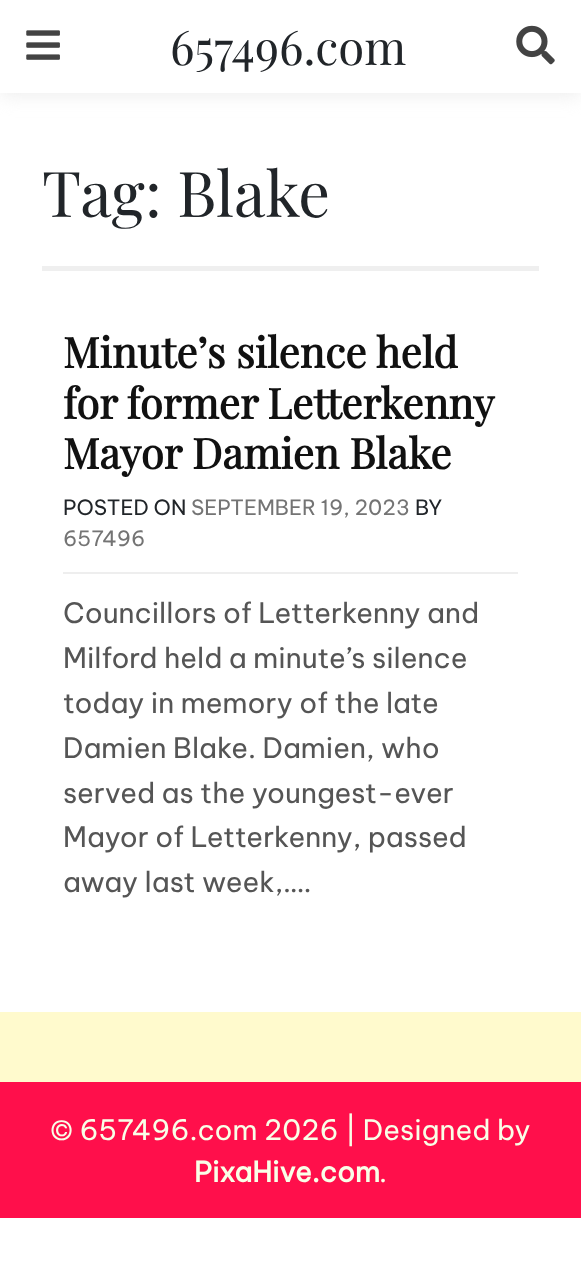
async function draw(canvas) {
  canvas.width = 581;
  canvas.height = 1287;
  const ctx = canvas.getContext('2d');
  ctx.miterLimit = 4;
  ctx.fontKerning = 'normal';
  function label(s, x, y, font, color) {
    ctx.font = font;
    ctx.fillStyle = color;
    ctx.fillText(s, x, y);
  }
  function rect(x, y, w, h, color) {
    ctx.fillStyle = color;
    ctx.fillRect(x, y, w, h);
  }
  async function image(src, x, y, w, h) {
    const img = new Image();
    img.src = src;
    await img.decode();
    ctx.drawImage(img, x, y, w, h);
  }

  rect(0, 0, 581, 1287, '#fff');
  ctx.fillStyle = '#eee';
  ctx.filter = 'blur(9px)';
  ctx.beginPath();
  ctx.rect(0, 4, 581, 92);
  ctx.fill();
  ctx.filter = 'none';
  rect(0, 0, 581, 93, '#fff');
  await image('assets/img1.png', 26, 30, 34, 30);
  label('657496.com', 170, 65, '47.25px Playfair Display', '#212529');
  await image('assets/img2.png', 516, 25, 39, 40);
  rect(42, 266, 497, 5, '#efefef');
  label('Tag: Blake', 42, 217, '63px Playfair Display', '#212529');
  label('Minute’s silence held', 63, 368, 'bold 42px Playfair Display', '#111');
  ctx.wordSpacing = '-1px';
  label('for former Letterkenny', 63, 419, 'bold 42px Playfair Display', '#111');
  ctx.wordSpacing = '0px';
  label('Mayor Damien Blake', 63, 469, 'bold 42px Playfair Display', '#111');
  rect(63, 572, 455, 2, '#eee');
  label('POSTED ON', 63, 515, '21px Be Vietnam Pro', '#212529');
  label('SEPTEMBER 19, 2023', 191, 515, '21px Be Vietnam Pro', '#747474');
  label('BY', 415, 515, '21px Be Vietnam Pro', '#212529');
  label('657496', 63, 546, '21px Be Vietnam Pro', '#747474');
  label('Councillors of Letterkenny and', 63, 623, '28px Be Vietnam Pro', '#555');
  label('Milford held a minute’s silence', 63, 668, '28px Be Vietnam Pro', '#555');
  label('today in memory of the late', 63, 713, '28px Be Vietnam Pro', '#555');
  label('Damien Blake. Damien, who', 63, 758, '28px Be Vietnam Pro', '#555');
  label('served as the youngest-ever', 63, 803, '28px Be Vietnam Pro', '#555');
  label('Mayor of Letterkenny, passed', 63, 847, '28px Be Vietnam Pro', '#555');
  label('away last week,….', 63, 892, '28px Be Vietnam Pro', '#555');
  rect(0, 1012, 581, 70, '#fffacd');
  rect(0, 1082, 581, 136, '#ff0f4b');
  label('© 657496.com 2026 | Designed by', 50, 1140, '28px Be Vietnam Pro', '#f9ffe7');
  label('PixaHive.com', 194, 1182, 'bold 28px Be Vietnam Pro', '#f9ffe7');
  label('.', 379, 1182, '28px Be Vietnam Pro', '#f9ffe7');
}

draw(document.querySelector('canvas'));
